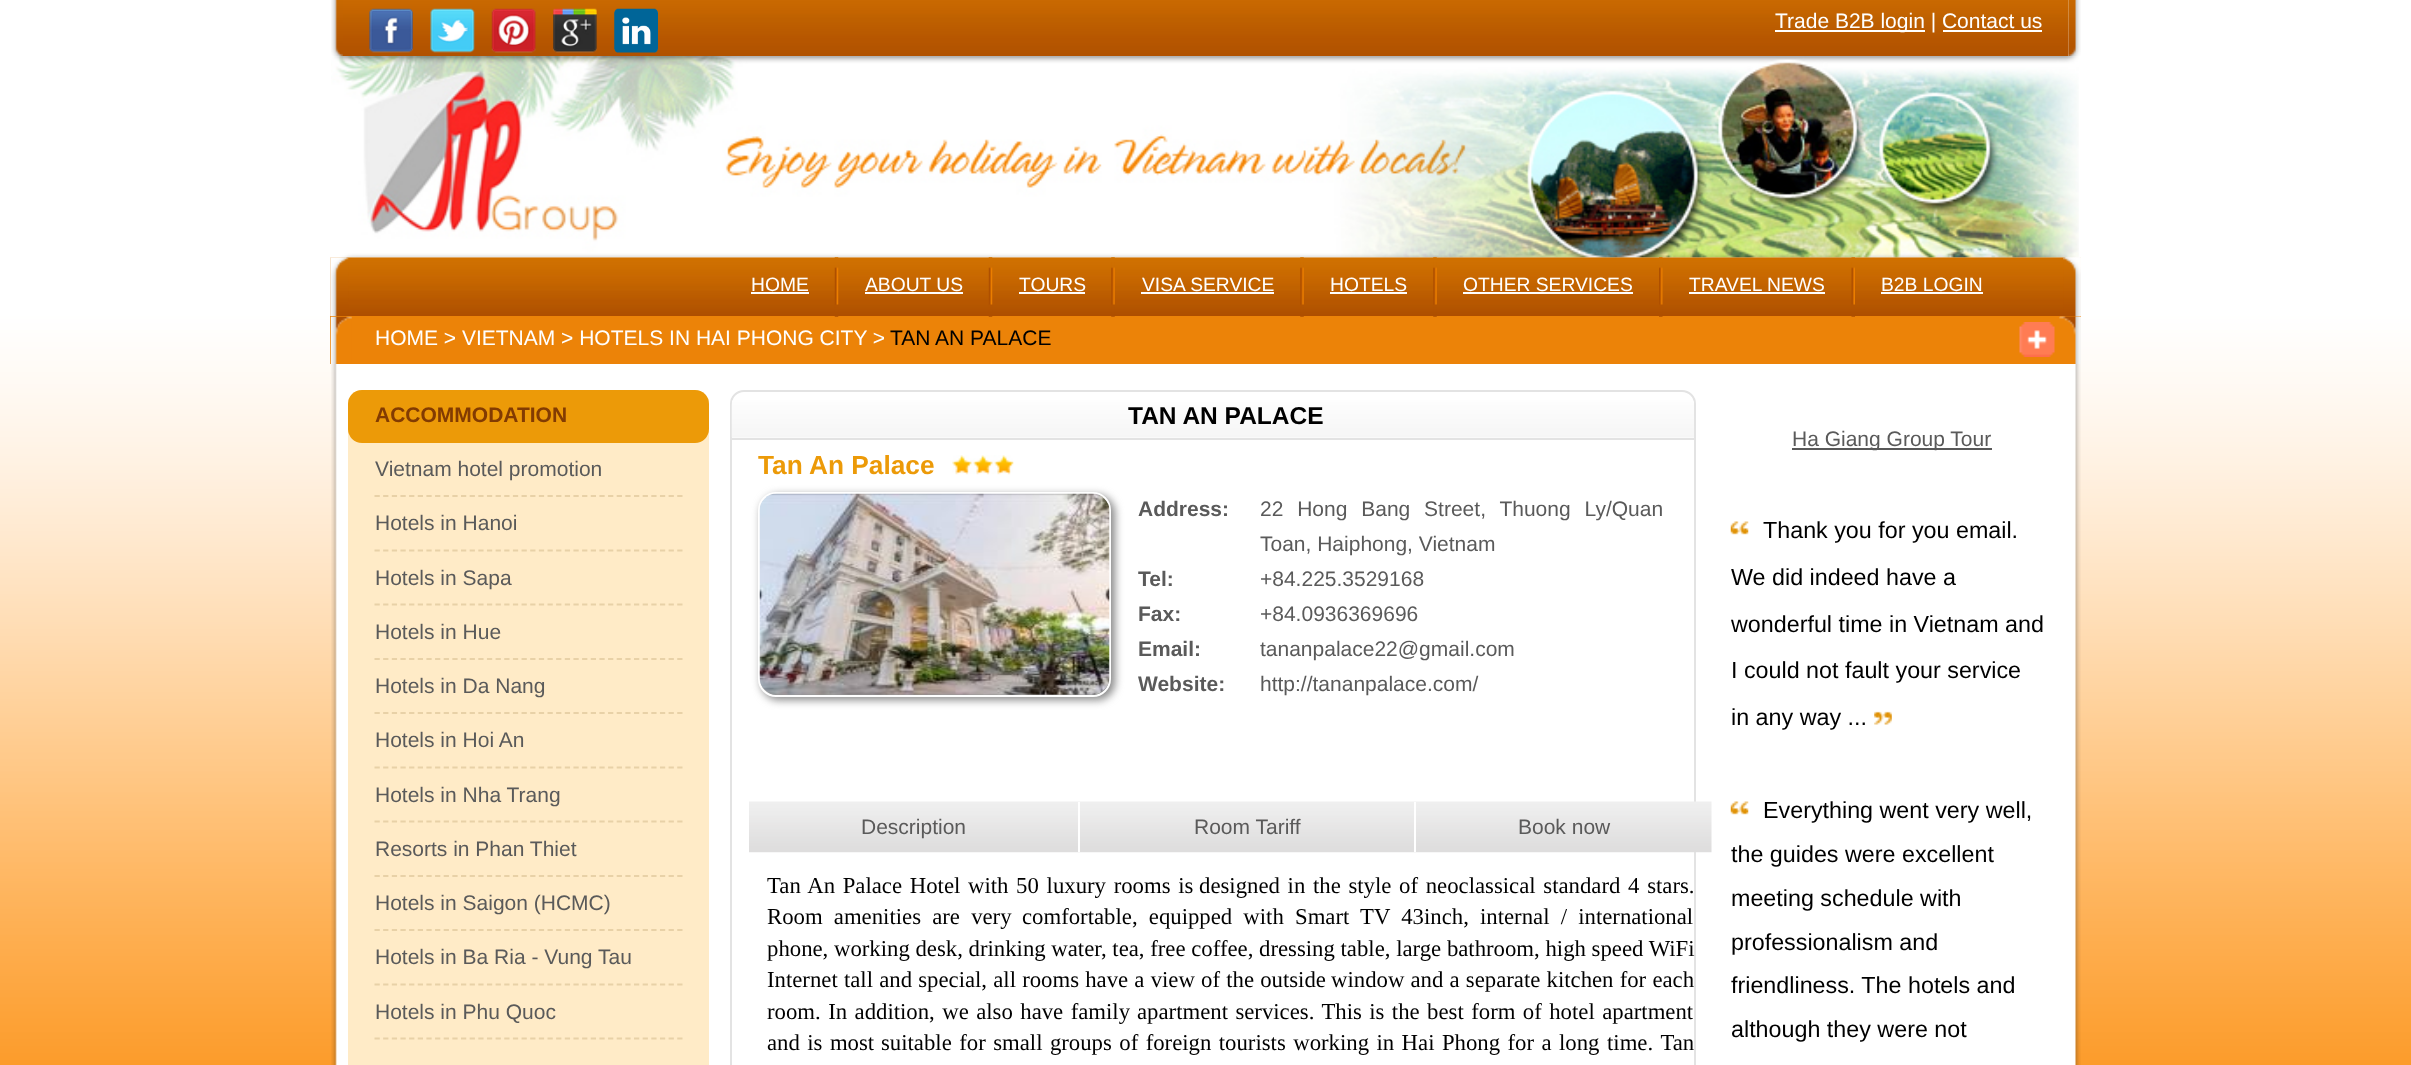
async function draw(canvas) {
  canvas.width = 2411;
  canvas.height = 1065;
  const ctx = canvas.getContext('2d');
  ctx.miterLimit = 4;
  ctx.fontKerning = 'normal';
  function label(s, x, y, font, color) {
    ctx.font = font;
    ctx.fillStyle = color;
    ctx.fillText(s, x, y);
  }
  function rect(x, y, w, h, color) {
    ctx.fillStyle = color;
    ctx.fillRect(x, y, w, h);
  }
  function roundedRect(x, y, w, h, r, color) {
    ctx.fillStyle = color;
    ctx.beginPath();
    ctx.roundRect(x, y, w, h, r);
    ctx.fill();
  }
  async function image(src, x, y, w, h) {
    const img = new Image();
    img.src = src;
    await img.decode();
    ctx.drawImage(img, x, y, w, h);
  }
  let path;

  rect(0, 0, 2411, 1065, '#fff');
  await image('assets/img1.png', 0, 0, 2411, 1065);
  await image('assets/img2.png', 331, 0, 12, 56);
  await image('assets/img3.png', 343, 0, 1726, 56);
  await image('assets/img4.png', 369, 8, 44, 45);
  await image('assets/img5.png', 430, 8, 45, 45);
  await image('assets/img6.png', 491, 8, 45, 45);
  await image('assets/img7.png', 553, 8, 44, 45);
  await image('assets/img8.png', 614, 8, 44, 45);
  rect(1775, 30, 150, 2, '#fff');
  label('Trade B2B login | Contact us', 1775, 28, '21px Liberation Sans', '#fff');
  rect(1943, 30, 99, 2, '#fff');
  await image('assets/img9.png', 2068, 0, 13, 56);
  await image('assets/img11.png', 330, 257, 1751, 59);
  await image('assets/img12.png', 330, 257, 19, 59);
  await image('assets/img13.png', 2063, 257, 18, 59);
  await image('assets/img14.png', 2063, 257, 18, 59);
  await image('assets/img15.png', 2063, 257, 18, 59);
  await image('assets/img10.png', 331, 56, 1748, 202);
  label('HOME', 751, 291, '19.25px Liberation Sans', '#fff');
  rect(751, 292, 58, 2, '#fff');
  rect(330, 316, 1751, 48, '#ec8308');
  await image('assets/img16.png', 834, 257, 5, 60);
  label('ABOUT US', 865, 291, '19.25px Liberation Sans', '#fff');
  rect(865, 292, 98, 2, '#fff');
  await image('assets/img16.png', 988, 257, 5, 60);
  label('TOURS', 1019, 291, '19.25px Liberation Sans', '#fff');
  rect(1019, 292, 66, 2, '#fff');
  await image('assets/img17.png', 1111, 257, 4, 60);
  label('VISA SERVICE', 1142, 291, '19.25px Liberation Sans', '#fff');
  rect(1141, 292, 133, 2, '#fff');
  await image('assets/img17.png', 1300, 257, 4, 60);
  label('HOTELS', 1330, 291, '19.25px Liberation Sans', '#fff');
  rect(1330, 292, 77, 2, '#fff');
  await image('assets/img18.png', 1433, 257, 4, 60);
  label('OTHER SERVICES', 1463, 291, '19.25px Liberation Sans', '#fff');
  rect(1463, 292, 170, 2, '#fff');
  await image('assets/img19.png', 1659, 257, 4, 60);
  label('TRAVEL NEWS', 1689, 291, '19.25px Liberation Sans', '#fff');
  rect(1689, 292, 136, 2, '#fff');
  await image('assets/img20.png', 1851, 257, 4, 60);
  label('B2B LOGIN', 1881, 291, '19.25px Liberation Sans', '#fff');
  rect(1881, 292, 102, 2, '#fff');
  await image('assets/img21.png', 330, 316, 22, 48);
  await image('assets/img22.png', 2059, 316, 22, 48);
  await image('assets/img23.png', 2059, 316, 22, 48);
  label('HOME > VIETNAM > HOTELS IN HAI PHONG CITY >', 375, 345, '21px Liberation Sans', '#fff');
  label('TAN AN PALACE', 890, 345, '21px Liberation Sans', '#000');
  await image('assets/img24.png', 2059, 316, 22, 48);
  await image('assets/img25.png', 2019, 322, 36, 35);
  await image('assets/img26.png', 331, 364, 1750, 701);
  roundedRect(348, 390, 361, 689, 14, '#ffebc7');
  roundedRect(348, 390, 361, 53, 14, '#ec9a08');
  label('ACCOMMODATION', 375, 422, 'bold 21px Liberation Sans', '#823b02');
  label('Vietnam hotel promotion', 375, 476, '21px Liberation Sans', '#5a5a5a');
  path = new Path2D('M374.5 496H682.5');
  ctx.strokeStyle = '#e8d1a7';
  ctx.lineWidth = 1.8;
  ctx.setLineDash([5.25, 3.4]);
  ctx.stroke(path);
  label('Hotels in Hanoi', 375, 530, '21px Liberation Sans', '#5a5a5a');
  path = new Path2D('M374.5 550.5H682.5');
  ctx.stroke(path);
  label('Hotels in Sapa', 375, 585, '21px Liberation Sans', '#5a5a5a');
  path = new Path2D('M374.5 604.5H682.5');
  ctx.stroke(path);
  label('Hotels in Hue', 375, 639, '21px Liberation Sans', '#5a5a5a');
  path = new Path2D('M374.5 659H682.5');
  ctx.stroke(path);
  label('Hotels in Da Nang', 375, 693, '21px Liberation Sans', '#5a5a5a');
  path = new Path2D('M374.5 713H682.5');
  ctx.stroke(path);
  label('Hotels in Hoi An', 375, 747, '21px Liberation Sans', '#5a5a5a');
  path = new Path2D('M374.5 767.5H682.5');
  ctx.stroke(path);
  label('Hotels in Nha Trang', 375, 802, '21px Liberation Sans', '#5a5a5a');
  path = new Path2D('M374.5 821.5H682.5');
  ctx.stroke(path);
  label('Resorts in Phan Thiet', 375, 856, '21px Liberation Sans', '#5a5a5a');
  path = new Path2D('M374.5 876H682.5');
  ctx.stroke(path);
  label('Hotels in Saigon (HCMC)', 375, 910, '21px Liberation Sans', '#5a5a5a');
  path = new Path2D('M374.5 930H682.5');
  ctx.stroke(path);
  label('Hotels in Ba Ria - Vung Tau', 375, 964, '21px Liberation Sans', '#5a5a5a');
  path = new Path2D('M374.5 984.5H682.5');
  ctx.stroke(path);
  label('Hotels in Phu Quoc', 375, 1019, '21px Liberation Sans', '#5a5a5a');
  path = new Path2D('M374.5 1038.5H682.5');
  ctx.stroke(path);
  ctx.beginPath();
  ctx.roundRect(731, 391, 964, 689, 13);
  ctx.strokeStyle = '#e3e3e3';
  ctx.lineWidth = 2;
  ctx.setLineDash([]);
  ctx.stroke();
  await image('assets/img27.png', 731, 400, 963, 38);
  rect(732, 438, 962, 2, '#e3e3e3');
  label('TAN AN PALACE', 1128, 424, 'bold 24.5px Liberation Sans', '#000');
  label('Tan An Palace', 758, 474, 'bold 26.25px Liberation Sans', '#ec9a08');
  await image('assets/img28.png', 952, 455, 62, 20);
  ctx.fillStyle = '#888';
  ctx.filter = 'blur(4.5px)';
  ctx.beginPath();
  ctx.roundRect(761, 495, 354, 205, 18);
  ctx.fill();
  ctx.filter = 'none';
  ctx.beginPath();
  ctx.roundRect(759, 493, 351, 203, 17);
  ctx.strokeStyle = '#fff';
  ctx.stroke();
  await image('assets/img29.png', 759, 493, 351, 202);
  label('Address:', 1138, 516, 'bold 21px Liberation Sans', '#5a5a5a');
  ctx.wordSpacing = '8px';
  label('22 Hong Bang Street, Thuong Ly/Quan', 1260, 516, '21px Liberation Sans', '#5a5a5a');
  ctx.wordSpacing = '0px';
  label('Toan, Haiphong, Vietnam', 1260, 551, '21px Liberation Sans', '#5a5a5a');
  label('Tel:', 1138, 586, 'bold 21px Liberation Sans', '#5a5a5a');
  label('+84.225.3529168', 1260, 586, '21px Liberation Sans', '#5a5a5a');
  label('Fax:', 1138, 621, 'bold 21px Liberation Sans', '#5a5a5a');
  label('+84.0936369696', 1260, 621, '21px Liberation Sans', '#5a5a5a');
  label('Email:', 1138, 656, 'bold 21px Liberation Sans', '#5a5a5a');
  label('tananpalace22@gmail.com', 1260, 656, '21px Liberation Sans', '#5a5a5a');
  label('Website:', 1138, 691, 'bold 21px Liberation Sans', '#5a5a5a');
  label('http://tananpalace.com/', 1260, 691, '21px Liberation Sans', '#5a5a5a');
  await image('assets/img30.png', 749, 801, 963, 52);
  label('Description', 861, 834, '21px Liberation Sans', '#5a5a5a');
  rect(1078, 802, 2, 50, '#fff');
  label('Room Tariff', 1194, 834, '21px Liberation Sans', '#5a5a5a');
  rect(1414, 802, 2, 50, '#fff');
  label('Book now', 1518, 834, '21px Liberation Sans', '#5a5a5a');
  ctx.wordSpacing = '2px';
  label('Tan An Palace Hotel with 50 luxury rooms is', 767, 893, '22.75px Liberation Serif', '#000');
  label('designed in the style of neoclassical standard 4 stars.', 1199, 893, '22.75px Liberation Serif', '#000');
  ctx.wordSpacing = '5.5px';
  label('Room amenities are very', 767, 924, '22.75px Liberation Serif', '#000');
  label('comfortable, equipped with Smart TV 43inch, internal / international', 1022, 924, '22.75px Liberation Serif', '#000');
  ctx.wordSpacing = '0px';
  label('phone, working desk, drinking water, tea, free coffee, dressing table, large bathroom, high speed WiFi', 767, 956, '22.75px Liberation Serif', '#000');
  ctx.wordSpacing = '0.5px';
  label('Internet tall and special, all rooms have a view of the outside', 767, 987, '22.75px Liberation Serif', '#000');
  label('window and a separate kitchen for each', 1331, 987, '22.75px Liberation Serif', '#000');
  ctx.wordSpacing = '1.75px';
  label('room. In addition, we also have family', 767, 1019, '22.75px Liberation Serif', '#000');
  label('apartment services. This is the best form of hotel apartment', 1137, 1019, '22.75px Liberation Serif', '#000');
  label('and is most', 767, 1050, '22.75px Liberation Serif', '#000');
  label('suitable for small groups of foreign tourists working in Hai Phong for a long', 881, 1050, '22.75px Liberation Serif', '#000');
  ctx.wordSpacing = '2px';
  label('time. Tan', 1607, 1050, '22.75px Liberation Serif', '#000');
  rect(1792, 448, 200, 2, '#585858');
  ctx.wordSpacing = '0px';
  label('Ha Giang Group Tour', 1792, 446, '21px Liberation Sans', '#5a5a5a');
  await image('assets/img31.png', 1730, 521, 19, 14);
  label('Thank you for you email.', 1763, 538, '23.3px Liberation Sans', '#000');
  label('We did indeed have a', 1731, 585, '23.3px Liberation Sans', '#000');
  label('wonderful time in Vietnam and', 1731, 632, '23.3px Liberation Sans', '#000');
  label('I could not fault your service', 1731, 678, '23.3px Liberation Sans', '#000');
  label('in any way ...', 1731, 725, '23.3px Liberation Sans', '#000');
  await image('assets/img32.png', 1874, 711, 18, 14);
  await image('assets/img31.png', 1730, 801, 19, 14);
  label('Everything went very well,', 1763, 818, '23.3px Liberation Sans', '#000');
  label('the guides were excellent', 1731, 862, '23.3px Liberation Sans', '#000');
  label('meeting schedule with', 1731, 906, '23.3px Liberation Sans', '#000');
  label('professionalism and', 1731, 950, '23.3px Liberation Sans', '#000');
  label('friendliness. The hotels and', 1731, 993, '23.3px Liberation Sans', '#000');
  label('although they were not', 1731, 1037, '23.3px Liberation Sans', '#000');
}

draw(document.querySelector('canvas'));
